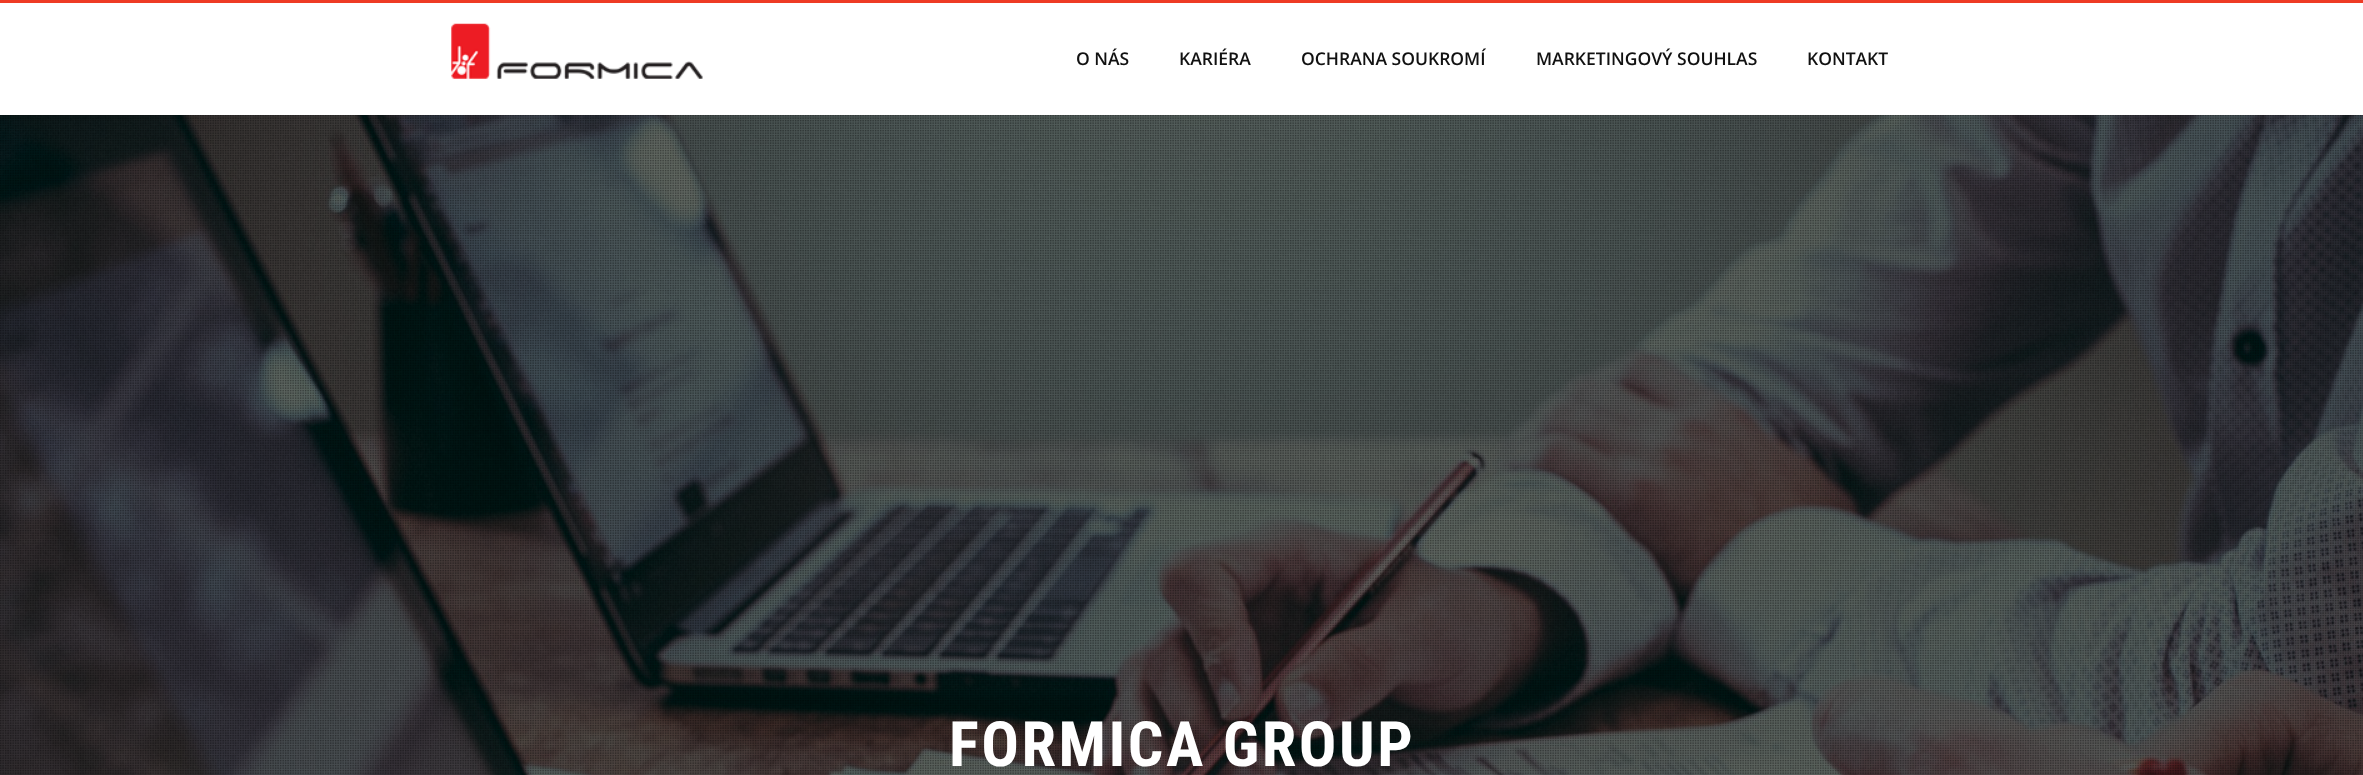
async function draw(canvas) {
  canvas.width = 2363;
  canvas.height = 775;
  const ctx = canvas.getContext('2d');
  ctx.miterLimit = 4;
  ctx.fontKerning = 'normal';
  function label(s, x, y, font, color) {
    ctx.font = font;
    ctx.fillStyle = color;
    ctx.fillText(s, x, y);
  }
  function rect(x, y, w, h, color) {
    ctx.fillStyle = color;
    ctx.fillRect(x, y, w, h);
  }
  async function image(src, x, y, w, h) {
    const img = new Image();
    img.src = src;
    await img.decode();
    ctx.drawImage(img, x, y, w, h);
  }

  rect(0, 0, 2363, 775, '#fff');
  rect(0, 0, 2363, 3, '#ee3b24');
  await image('assets/img1.png', 451, 23, 252, 56);
  label('O NÁS', 1076, 65, '600 17.5px Open Sans', '#111');
  label('KARIÉRA', 1179, 65, '600 17.5px Open Sans', '#111');
  label('OCHRANA SOUKROMÍ', 1301, 65, '600 17.5px Open Sans', '#111');
  label('MARKETINGOVÝ SOUHLAS', 1536, 65, '600 17.5px Open Sans', '#111');
  label('KONTAKT', 1807, 65, '600 17.5px Open Sans', '#111');
  await image('assets/img2.png', 0, 115, 2363, 660);
  await image('assets/img3.png', 0, 115, 2363, 660);
  ctx.letterSpacing = '2.5px';
  label('FORMICA GROUP', 949, 766, 'bold 62.5px Roboto Condensed', '#fff');
}

draw(document.querySelector('canvas'));
